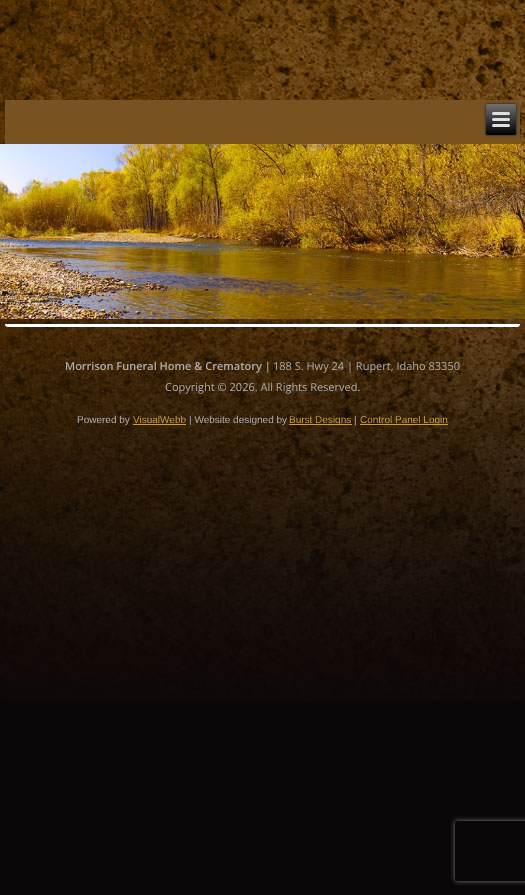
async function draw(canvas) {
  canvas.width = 525;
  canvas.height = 895;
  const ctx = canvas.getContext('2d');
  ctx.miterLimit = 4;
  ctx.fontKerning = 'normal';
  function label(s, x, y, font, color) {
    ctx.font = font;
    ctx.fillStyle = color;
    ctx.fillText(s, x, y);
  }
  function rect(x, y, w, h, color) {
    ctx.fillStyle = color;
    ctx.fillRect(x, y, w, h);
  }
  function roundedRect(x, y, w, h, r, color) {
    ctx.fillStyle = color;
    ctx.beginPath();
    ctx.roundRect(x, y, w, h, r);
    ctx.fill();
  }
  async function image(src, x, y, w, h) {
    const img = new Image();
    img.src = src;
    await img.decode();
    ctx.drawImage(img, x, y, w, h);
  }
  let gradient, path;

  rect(0, 0, 525, 895, '#0b0708');
  await image('assets/img1.png', 0, 0, 525, 701);
  rect(5, 100, 515, 44, '#785221');
  ctx.fillStyle = '#00000033';
  ctx.filter = 'blur(1.5px)';
  ctx.beginPath();
  ctx.roundRect(485, 103, 32, 33, 3);
  ctx.fill();
  ctx.filter = 'none';
  ctx.save();
  ctx.beginPath();
  ctx.roundRect(485, 103, 32, 33, 3);
  ctx.clip();
  gradient = ctx.createLinearGradient(501, 104, 501, 135);
  gradient.addColorStop(0, '#707070');
  gradient.addColorStop(1, '#000');
  ctx.fillStyle = gradient;
  ctx.fillRect(485, 104, 32, 31);
  ctx.restore();
  ctx.beginPath();
  ctx.roundRect(485.5, 103.5, 31, 32, 2.5);
  ctx.strokeStyle = '#404040';
  ctx.stroke();
  roundedRect(492, 112, 18, 3, 1.5, '#e0e0e0');
  roundedRect(492, 118, 18, 3, 1.5, '#e0e0e0');
  roundedRect(492, 124, 18, 3, 1.5, '#e0e0e0');
  await image('assets/img2.png', 0, 144, 525, 175);
  ctx.fillStyle = '#fff';
  ctx.beginPath();
  ctx.roundRect(5, 324, 515, 3, [0, 0, 3, 3]);
  ctx.fill();
  label('Morrison Funeral Home & Crematory |', 65, 370, '600 11px Open Sans', '#adadad');
  label('188 S. Hwy 24 | Rupert, Idaho 83350', 273, 370, '11px Open Sans', '#adadad');
  label('Copyright © 2026. All Rights Reserved.', 165, 391, '11px Open Sans', '#adadad');
  label('Powered by', 77, 423, '10px Liberation Sans', '#adadad');
  rect(133, 424, 53, 1, '#c39d4e');
  label('VisualWebb', 133, 423, '10px Liberation Sans', '#c39d4e');
  label('| Website designed by', 189, 423, '10px Liberation Sans', '#adadad');
  rect(289, 424, 63, 1, '#c39d4e');
  label('Burst Designs', 289, 423, '10px Liberation Sans', '#c39d4e');
  label('|', 354, 423, '10px Liberation Sans', '#adadad');
  rect(360, 424, 88, 1, '#c39d4e');
  label('Control Panel Login', 360, 423, '10px Liberation Sans', '#c39d4e');
  ctx.save();
  path = new Path2D('M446 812H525V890H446ZM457 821H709C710 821 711 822 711 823V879C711 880 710 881 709 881H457C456 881 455 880 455 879V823C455 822 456 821 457 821Z');
  ctx.clip(path, 'evenodd');
  ctx.fillStyle = '#808080';
  ctx.filter = 'blur(2.5px)';
  ctx.beginPath();
  ctx.roundRect(455, 821, 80, 60, 2);
  ctx.fill();
  ctx.filter = 'none';
  ctx.restore();
}

draw(document.querySelector('canvas'));
